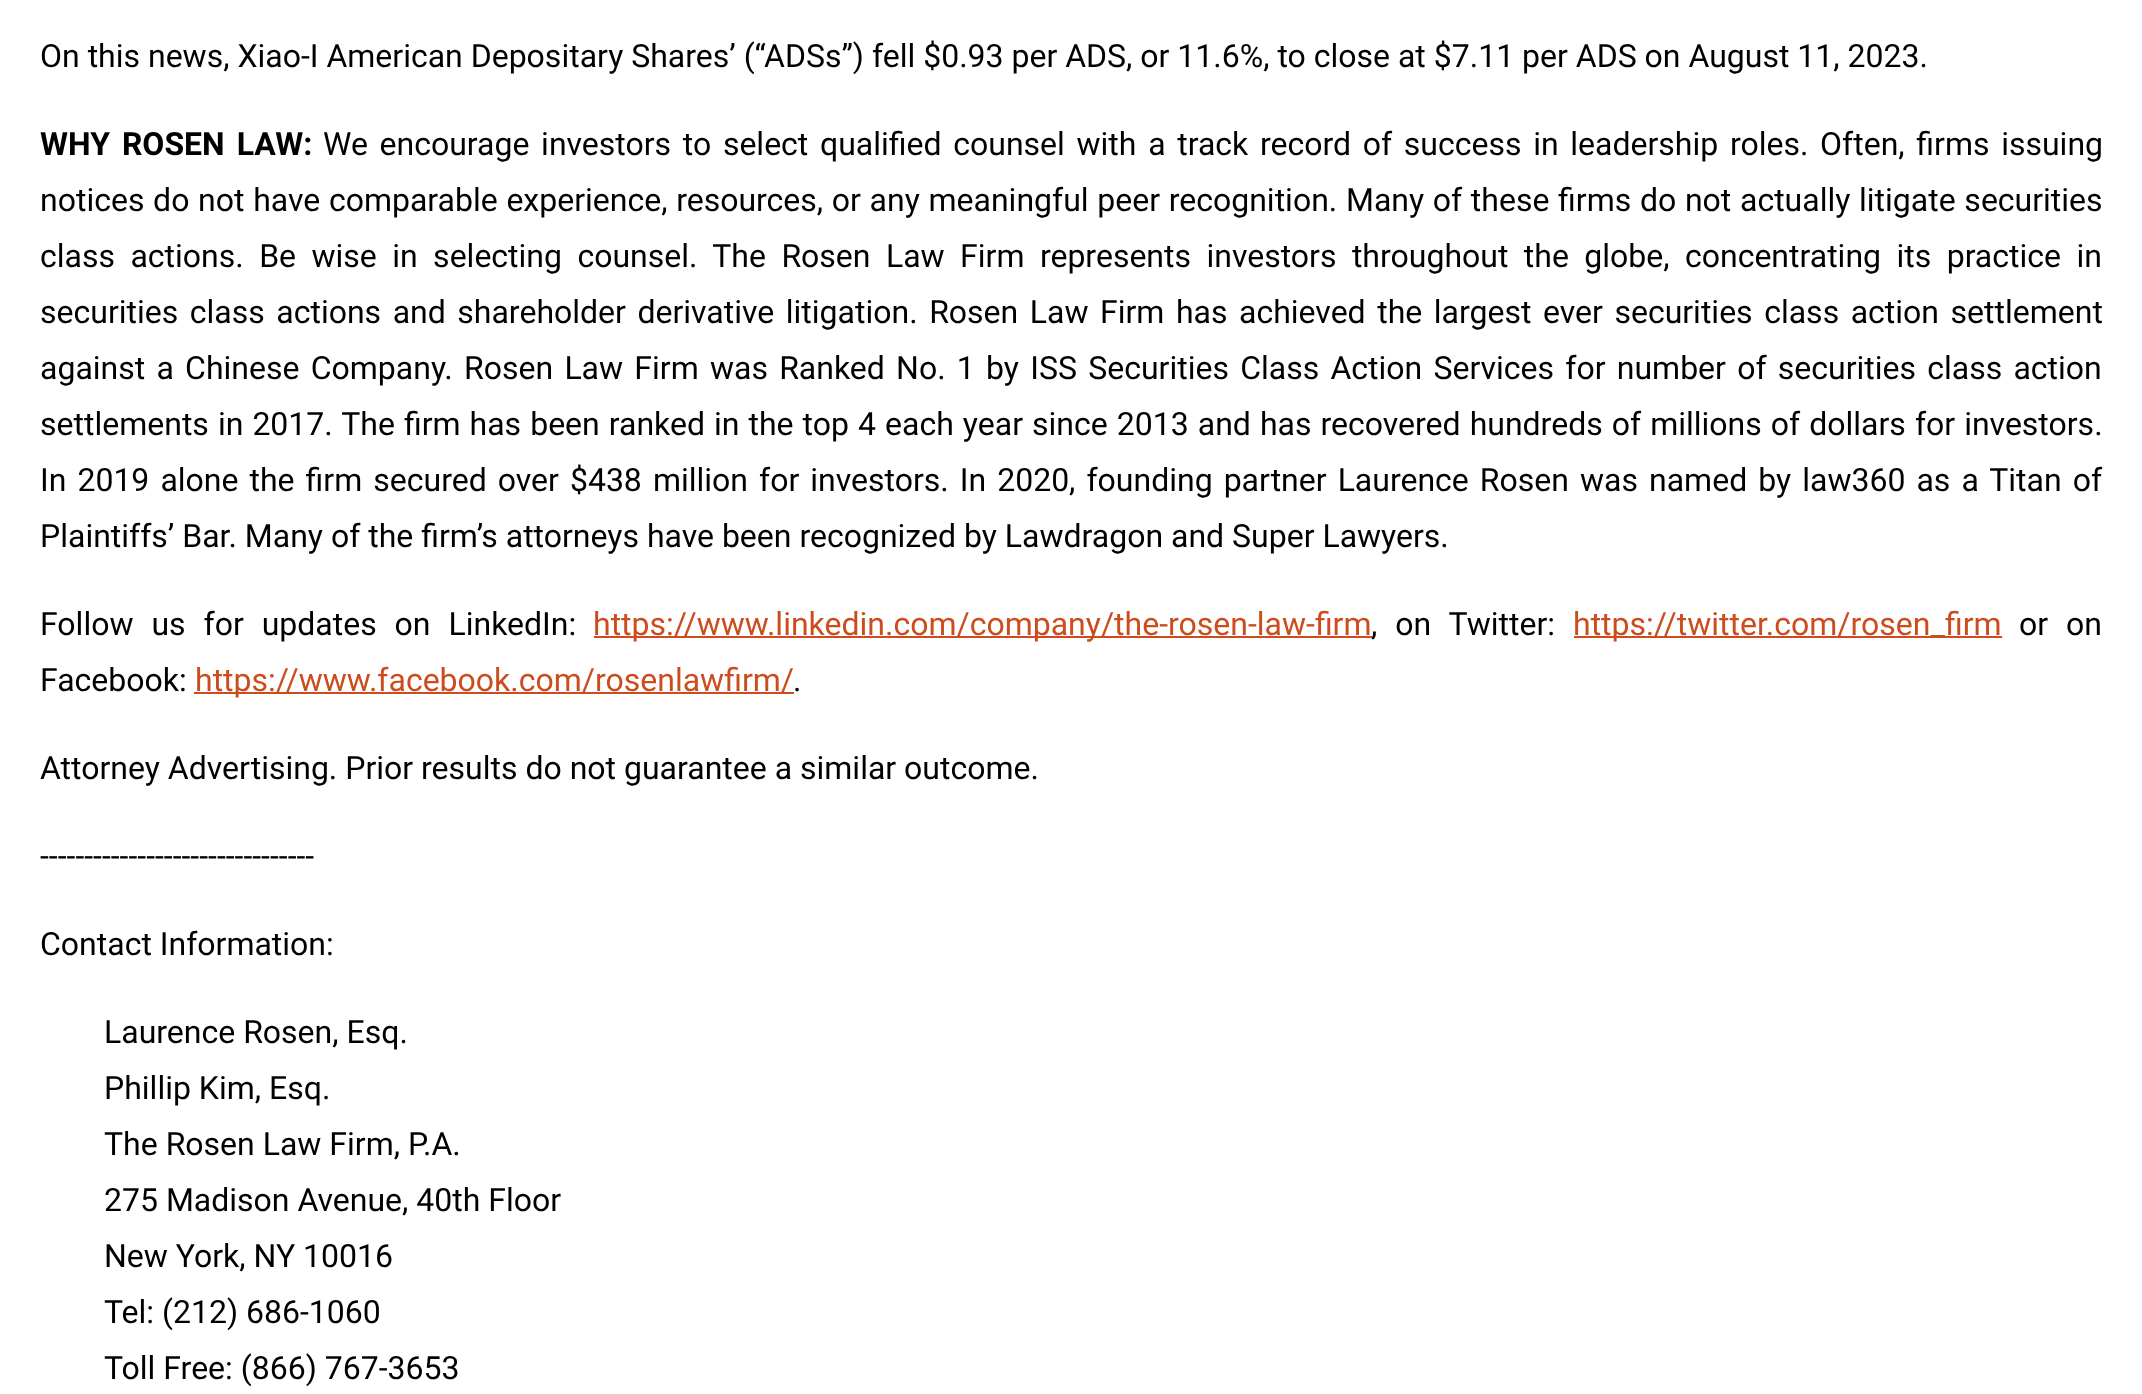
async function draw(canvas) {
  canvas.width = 2142;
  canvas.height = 1394;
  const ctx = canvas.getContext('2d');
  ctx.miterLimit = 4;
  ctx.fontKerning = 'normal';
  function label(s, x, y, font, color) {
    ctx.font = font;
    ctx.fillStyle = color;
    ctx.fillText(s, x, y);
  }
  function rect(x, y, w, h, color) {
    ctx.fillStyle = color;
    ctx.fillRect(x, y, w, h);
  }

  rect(0, 0, 2142, 1394, '#fff');
  label('On this news, Xiao-I American Depositary Shares’ (“ADSs”) fell $0.93 per ADS, or 11.6%, to close at $7.11 per ADS on August 11, 2023.', 40, 67, '32px Roboto', '#000');
  ctx.wordSpacing = '4px';
  label('WHY ROSEN LAW:', 40, 155, 'bold 32px Roboto', '#000');
  ctx.wordSpacing = '3.75px';
  label('We encourage investors to select qualified counsel with a track record of success in leadership roles. Often, firms issuing', 323, 155, '32px Roboto', '#000');
  ctx.wordSpacing = '0.75px';
  label('notices do not have comparable experience, resources, or any meaningful peer recognition. Many of these firms do not actually litigate securities', 40, 211, '32px Roboto', '#000');
  ctx.wordSpacing = '7.5px';
  label('class actions. Be wise in selecting counsel. The Rosen Law Firm represents investors throughout the globe, concentrating its practice in', 40, 267, '32px Roboto', '#000');
  ctx.wordSpacing = '3.6px';
  label('securities class actions and shareholder derivative litigation. Rosen Law Firm has achieved the largest ever securities class action settlement', 40, 323, '32px Roboto', '#000');
  ctx.wordSpacing = '3.3px';
  label('against a Chinese Company. Rosen Law Firm was Ranked No. 1 by ISS Securities Class Action Services for number of securities class action', 40, 379, '32px Roboto', '#000');
  ctx.wordSpacing = '1.1px';
  label('settlements in 2017. The firm has been ranked in the top 4 each year since 2013 and has recovered hundreds of millions of dollars for investors.', 40, 435, '32px Roboto', '#000');
  ctx.wordSpacing = '3.1px';
  label('In 2019 alone the firm secured over $438 million for investors. In 2020, founding partner Laurence Rosen was named by law360 as a Titan of', 40, 491, '32px Roboto', '#000');
  ctx.wordSpacing = '0px';
  label('Plaintiffs’ Bar. Many of the firm’s attorneys have been recognized by Lawdragon and Super Lawyers.', 40, 547, '32px Roboto', '#000');
  ctx.wordSpacing = '10px';
  label('Follow us for updates on LinkedIn:', 40, 635, '32px Roboto', '#000');
  rect(594, 636, 778, 2, '#cc4c1e');
  ctx.wordSpacing = '0px';
  label('https://www.linkedin.com/company/the-rosen-law-firm', 593, 635, '32px Roboto', '#cc4c1e');
  ctx.wordSpacing = '10px';
  label(', on Twitter:', 1371, 635, '32px Roboto', '#000');
  rect(1574, 636, 428, 2, '#cc4c1e');
  ctx.wordSpacing = '0px';
  label('https://twitter.com/rosen_firm', 1573, 635, '32px Roboto', '#cc4c1e');
  ctx.wordSpacing = '10px';
  label('or on', 2019, 635, '32px Roboto', '#000');
  ctx.wordSpacing = '0px';
  label('Facebook:', 40, 691, '32px Roboto', '#000');
  rect(194, 692, 600, 2, '#cc4c1e');
  label('https://www.facebook.com/rosenlawfirm/', 195, 691, '32px Roboto', '#cc4c1e');
  label('.', 793, 691, '32px Roboto', '#000');
  label('Attorney Advertising. Prior results do not guarantee a similar outcome.', 40, 779, '32px Roboto', '#000');
  label('-------------------------------', 40, 867, '32px Roboto', '#000');
  label('Contact Information:', 40, 955, '32px Roboto', '#000');
  label('Laurence Rosen, Esq.', 104, 1043, '32px Roboto', '#000');
  label('Phillip Kim, Esq.', 104, 1099, '32px Roboto', '#000');
  label('The Rosen Law Firm, P.A.', 104, 1155, '32px Roboto', '#000');
  label('275 Madison Avenue, 40th Floor', 104, 1211, '32px Roboto', '#000');
  label('New York, NY 10016', 104, 1267, '32px Roboto', '#000');
  label('Tel: (212) 686-1060', 104, 1323, '32px Roboto', '#000');
  label('Toll Free: (866) 767-3653', 104, 1379, '32px Roboto', '#000');
}

draw(document.querySelector('canvas'));
